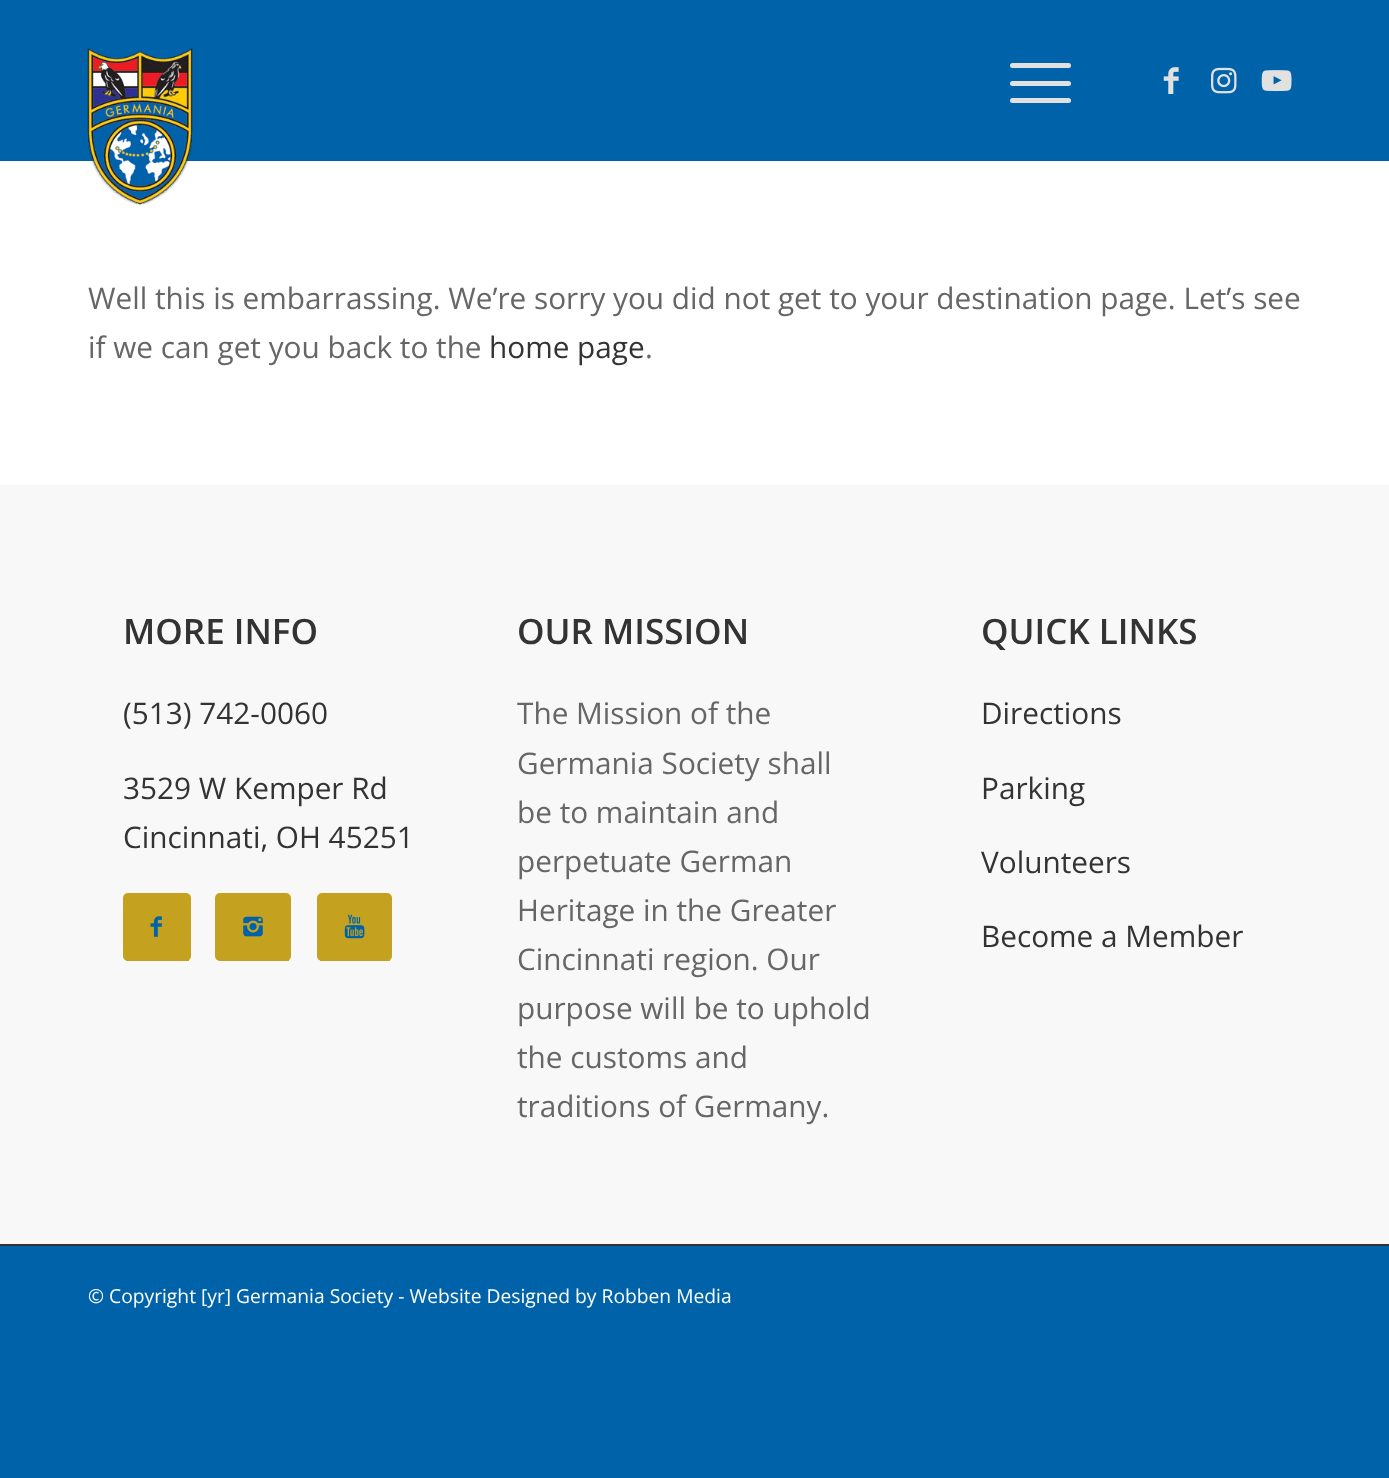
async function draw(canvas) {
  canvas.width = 1389;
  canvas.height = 1478;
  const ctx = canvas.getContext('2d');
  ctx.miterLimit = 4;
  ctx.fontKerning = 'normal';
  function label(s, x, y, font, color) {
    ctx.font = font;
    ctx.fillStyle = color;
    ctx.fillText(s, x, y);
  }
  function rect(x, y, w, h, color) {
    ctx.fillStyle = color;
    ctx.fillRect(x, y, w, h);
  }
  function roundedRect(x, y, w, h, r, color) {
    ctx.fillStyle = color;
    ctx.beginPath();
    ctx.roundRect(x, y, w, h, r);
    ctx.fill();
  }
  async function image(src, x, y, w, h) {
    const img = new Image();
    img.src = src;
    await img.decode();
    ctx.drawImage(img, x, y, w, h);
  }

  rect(0, 0, 1389, 1478, '#0063aa');
  rect(0, 161, 1389, 324, '#fff');
  await image('assets/img1.png', 87, 48, 106, 157);
  roundedRect(1010, 81, 61, 5, 2.5, '#e1e1e1');
  roundedRect(1010, 63, 61, 5, 2.5, '#e1e1e1');
  roundedRect(1010, 98, 61, 5, 2.5, '#e1e1e1');
  await image('assets/img2.png', 1163, 67, 16, 27);
  await image('assets/img3.png', 1211, 67, 26, 27);
  await image('assets/img4.png', 1261, 70, 31, 22);
  label('Well this is embarrassing. We’re sorry you did not get to your destination page. Let’s see', 88, 309, '29.75px Open Sans', '#666');
  label('if we can get you back to the', 88, 358, '29.75px Open Sans', '#666');
  label('home page', 489, 358, '29.75px Open Sans', '#333');
  label('.', 645, 358, '29.75px Open Sans', '#666');
  rect(0, 485, 1389, 759, '#f8f8f8');
  label('MORE INFO', 123, 644, '600 35px Open Sans', '#333');
  label('(513) 742-0060', 123, 724, '29.75px Open Sans', '#333');
  label('3529 W Kemper Rd', 123, 799, '29.75px Open Sans', '#333');
  label('Cincinnati, OH 45251', 123, 848, '29.75px Open Sans', '#333');
  roundedRect(123, 893, 68, 68, 5, '#c4a21f');
  rect(126, 960, 63, 1, '#c4a21f');
  await image('assets/img5.png', 150, 916, 12, 21);
  roundedRect(215, 893, 76, 68, 5, '#c4a21f');
  rect(219, 960, 70, 1, '#c4a21f');
  await image('assets/img6.png', 243, 916, 20, 21);
  roundedRect(317, 893, 75, 68, 5, '#c4a21f');
  rect(320, 960, 70, 1, '#c4a21f');
  await image('assets/img7.png', 344, 914, 21, 25);
  label('OUR MISSION', 517, 644, '600 35px Open Sans', '#333');
  label('The Mission of the', 517, 724, '29.75px Open Sans', '#666');
  label('Germania Society shall', 517, 774, '29.75px Open Sans', '#666');
  label('be to maintain and', 517, 823, '29.75px Open Sans', '#666');
  label('perpetuate German', 517, 872, '29.75px Open Sans', '#666');
  label('Heritage in the Greater', 517, 921, '29.75px Open Sans', '#666');
  label('Cincinnati region. Our', 517, 970, '29.75px Open Sans', '#666');
  label('purpose will be to uphold', 517, 1019, '29.75px Open Sans', '#666');
  label('the customs and', 517, 1068, '29.75px Open Sans', '#666');
  label('traditions of Germany.', 517, 1117, '29.75px Open Sans', '#666');
  label('QUICK LINKS', 981, 644, '600 35px Open Sans', '#333');
  label('Directions', 981, 724, '29.75px Open Sans', '#333');
  label('Parking', 981, 799, '29.75px Open Sans', '#333');
  label('Volunteers', 981, 873, '29.75px Open Sans', '#333');
  label('Become a Member', 981, 947, '29.75px Open Sans', '#333');
  rect(0, 1244, 1389, 2, '#333');
  label('© Copyright [yr] Germania Society - Website Designed by Robben Media', 88, 1303, '19.25px Open Sans', '#fff');
}

draw(document.querySelector('canvas'));
